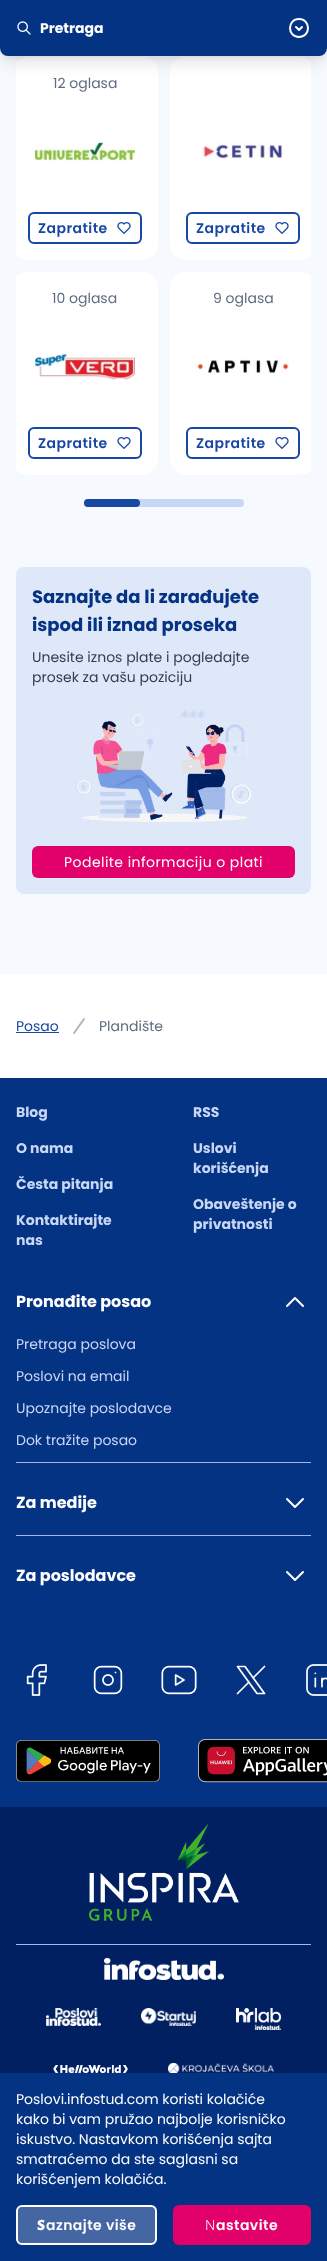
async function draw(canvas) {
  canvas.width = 327;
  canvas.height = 2261;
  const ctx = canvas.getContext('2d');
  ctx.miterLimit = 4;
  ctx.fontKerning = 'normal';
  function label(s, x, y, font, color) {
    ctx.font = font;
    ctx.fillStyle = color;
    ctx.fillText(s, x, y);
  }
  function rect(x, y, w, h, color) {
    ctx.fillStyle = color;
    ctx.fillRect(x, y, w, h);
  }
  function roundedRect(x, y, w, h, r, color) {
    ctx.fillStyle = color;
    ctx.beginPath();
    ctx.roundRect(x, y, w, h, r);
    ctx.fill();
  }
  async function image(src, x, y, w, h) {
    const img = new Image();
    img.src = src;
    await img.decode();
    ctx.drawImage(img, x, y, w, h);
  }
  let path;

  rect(0, 0, 327, 2261, '#f6f9fd');
  ctx.save();
  ctx.beginPath();
  ctx.rect(16, 57, 295, 442);
  ctx.clip();
  roundedRect(12, 57, 146, 203, 16, '#fff');
  roundedRect(170, 57, 146, 203, 16, '#fff');
  ctx.restore();
  ctx.fillStyle = '#0000001a';
  ctx.filter = 'blur(3px)';
  ctx.beginPath();
  ctx.roundRect(4, 8, 319, 48, 4);
  ctx.fill();
  ctx.filter = 'none';
  ctx.filter = 'blur(7.5px)';
  ctx.beginPath();
  ctx.roundRect(3, 13, 321, 50, 5);
  ctx.fill();
  ctx.filter = 'none';
  ctx.fillStyle = '#053384';
  ctx.beginPath();
  ctx.roundRect(0, 0, 327, 56, [0, 0, 8, 8]);
  ctx.fill();
  await image('assets/img1.png', 17, 21, 14, 14);
  label('Pretraga', 40, 33, 'bold 14px Poppins', '#fff');
  path = new Path2D('M302 27L299 30L296 27M299 19C287 19 287 37 299 37C311 37 311 19 299 19Z');
  ctx.strokeStyle = '#fff';
  ctx.lineWidth = 2;
  ctx.lineCap = 'round';
  ctx.lineJoin = 'round';
  ctx.stroke(path);
  label('12 oglasa', 53, 88, '14px Poppins', '#5f6c81');
  await image('assets/img2.png', 35, 142, 100, 19);
  ctx.beginPath();
  ctx.roundRect(29, 213, 112, 30, 5);
  ctx.strokeStyle = '#1847a4';
  ctx.lineJoin = 'miter';
  ctx.stroke();
  ctx.letterSpacing = '0.45px';
  label('Zapratite', 38, 233, '600 14px Poppins', '#1847a4');
  await image('assets/img3.png', 117, 222, 14, 12);
  ctx.save();
  ctx.beginPath();
  ctx.rect(16, 57, 295, 442);
  ctx.clip();
  roundedRect(12, 272, 146, 203, 16, '#fff');
  ctx.restore();
  ctx.letterSpacing = '0px';
  label('10 oglasa', 52, 303, '14px Poppins', '#5f6c81');
  await image('assets/img4.png', 35, 353, 100, 27);
  ctx.beginPath();
  ctx.roundRect(29, 428, 112, 30, 5);
  ctx.stroke();
  ctx.letterSpacing = '0.45px';
  label('Zapratite', 38, 448, '600 14px Poppins', '#1847a4');
  await image('assets/img3.png', 117, 437, 14, 12);
  await image('assets/img5.png', 201, 140, 83, 19);
  ctx.beginPath();
  ctx.roundRect(187, 213, 112, 30, 5);
  ctx.stroke();
  label('Zapratite', 196, 233, '600 14px Poppins', '#1847a4');
  await image('assets/img3.png', 275, 222, 14, 12);
  ctx.save();
  ctx.beginPath();
  ctx.rect(16, 57, 295, 442);
  ctx.clip();
  roundedRect(170, 272, 146, 203, 16, '#fff');
  ctx.restore();
  ctx.letterSpacing = '0px';
  label('9 oglasa', 213, 303, '14px Poppins', '#5f6c81');
  await image('assets/img6.png', 193, 359, 96, 15);
  ctx.beginPath();
  ctx.roundRect(187, 428, 112, 30, 5);
  ctx.stroke();
  ctx.letterSpacing = '0.45px';
  label('Zapratite', 196, 448, '600 14px Poppins', '#1847a4');
  await image('assets/img3.png', 275, 437, 14, 12);
  roundedRect(84, 499, 160, 8, 4, '#c8d7f5');
  roundedRect(84, 499, 56, 8, 4, '#1847a4');
  roundedRect(16, 567, 295, 327, 8, '#dfe8f9');
  ctx.letterSpacing = '0px';
  label('Saznajte da li zarađujete', 32, 603, 'bold 18px Poppins', '#053384');
  label('ispod ili iznad proseka', 32, 631, 'bold 18px Poppins', '#053384');
  label('Unesite iznos plate i pogledajte', 32, 662, '14px Poppins', '#323e52');
  label('prosek za vašu poziciju', 32, 682, '14px Poppins', '#323e52');
  await image('assets/img7.png', 76, 711, 175, 111);
  roundedRect(32, 846, 263, 32, 6, '#e2016a');
  ctx.letterSpacing = '0.45px';
  label('Podelite informaciju o plati', 64, 867, '14px Poppins', '#fff');
  rect(0, 974, 327, 104, '#fff');
  ctx.letterSpacing = '0px';
  label('Posao', 16, 1031, '14px Poppins', '#1847a4');
  rect(16, 1032, 43, 1, '#1847a4');
  path = new Path2D('M84 1019L74 1033');
  ctx.strokeStyle = '#aeb5c1';
  ctx.lineJoin = 'round';
  ctx.stroke(path);
  label('Plandište', 99, 1031, '14px Poppins', '#5f6c81');
  rect(0, 1807, 327, 266, '#002062');
  rect(0, 1078, 327, 729, '#053384');
  label('Blog', 16, 1117, 'bold 14px Poppins', '#c8d7f5');
  label('O nama', 16, 1153, 'bold 14px Poppins', '#c8d7f5');
  label('Česta pitanja', 16, 1189, 'bold 14px Poppins', '#c8d7f5');
  label('Kontaktirajte', 16, 1225, 'bold 14px Poppins', '#c8d7f5');
  label('nas', 16, 1245, 'bold 14px Poppins', '#c8d7f5');
  label('RSS', 193, 1117, 'bold 14px Poppins', '#c8d7f5');
  label('Uslovi', 193, 1153, 'bold 14px Poppins', '#c8d7f5');
  label('korišćenja', 193, 1173, 'bold 14px Poppins', '#c8d7f5');
  label('Obaveštenje o', 193, 1209, 'bold 14px Poppins', '#c8d7f5');
  label('privatnosti', 193, 1229, 'bold 14px Poppins', '#c8d7f5');
  label('Pronađite posao', 16, 1307, 'bold 16px Poppins', '#fff');
  path = new Path2D('M303 1306L295 1298L287 1306');
  ctx.strokeStyle = '#fff';
  ctx.stroke(path);
  label('Pretraga poslova', 16, 1349, '14px Poppins', '#c8d7f5');
  label('Poslovi na email', 16, 1381, '14px Poppins', '#c8d7f5');
  label('Upoznajte poslodavce', 16, 1413, '14px Poppins', '#c8d7f5');
  label('Dok tražite posao', 16, 1445, '14px Poppins', '#c8d7f5');
  rect(16, 1462, 295, 1, '#a1baeb');
  label('Za medije', 16, 1508, 'bold 16px Poppins', '#fff');
  path = new Path2D('M287 1499L295 1507L303 1499');
  ctx.stroke(path);
  rect(16, 1535, 295, 1, '#a1baeb');
  label('Za poslodavce', 16, 1581, 'bold 16px Poppins', '#fff');
  path = new Path2D('M287 1572L295 1580L303 1572');
  ctx.stroke(path);
  await image('assets/img8.png', 26, 1664, 21, 32);
  await image('assets/img9.png', 93, 1665, 30, 30);
  await image('assets/img10.png', 161, 1665, 36, 30);
  path = new Path2D('M237.5 1666.5L257 1693.5H264.5L245 1666.5ZM237.5 1693.5L249 1682M253 1678L264.5 1666.5');
  ctx.lineWidth = 1.7;
  ctx.stroke(path);
  await image('assets/img11.png', 306, 1664, 21, 32);
  await image('assets/img12.png', 16, 1740, 144, 42);
  await image('assets/img13.png', 198, 1739, 129, 44);
  await image('assets/img14.png', 89, 1823, 150, 98);
  rect(16, 1944, 295, 1, '#a1baeb');
  await image('assets/img15.png', 104, 1958, 120, 22);
  await image('assets/img16.png', 46, 2008, 55, 18);
  await image('assets/img17.png', 141, 2008, 55, 18);
  await image('assets/img18.png', 236, 2008, 45, 22);
  await image('assets/img19.png', 53, 2065, 75, 8);
  await image('assets/img20.png', 168, 2063, 106, 10);
  rect(0, 2073, 327, 188, '#053384');
  label('Poslovi.infostud.com koristi kolačiće', 16, 2104, '14px Poppins', '#fff');
  label('kako bi vam pružao najbolje korisničko', 16, 2124, '14px Poppins', '#fff');
  label('iskustvo. Nastavkom korišćenja sajta', 16, 2144, '14px Poppins', '#fff');
  label('smatraćemo da ste saglasni sa', 16, 2164, '14px Poppins', '#fff');
  label('korišćenjem kolačića.', 16, 2184, '14px Poppins', '#fff');
  ctx.fillStyle = '#4466a3';
  ctx.beginPath();
  ctx.roundRect(17, 2206, 139, 38, 5);
  ctx.fill();
  ctx.lineWidth = 2;
  ctx.lineJoin = 'miter';
  ctx.stroke();
  ctx.letterSpacing = '0.45px';
  label('S', 37, 2230, '900 14px Noto Sans', '#fff');
  label('aznajte više', 46, 2230, '600 14px Poppins', '#fff');
  roundedRect(173, 2205, 138, 40, 6, '#e2016a');
  label('N', 205, 2230, '300 14px Noto Sans', '#fff');
  label('astavite', 216, 2230, '600 14px Poppins', '#fff');
}

draw(document.querySelector('canvas'));
